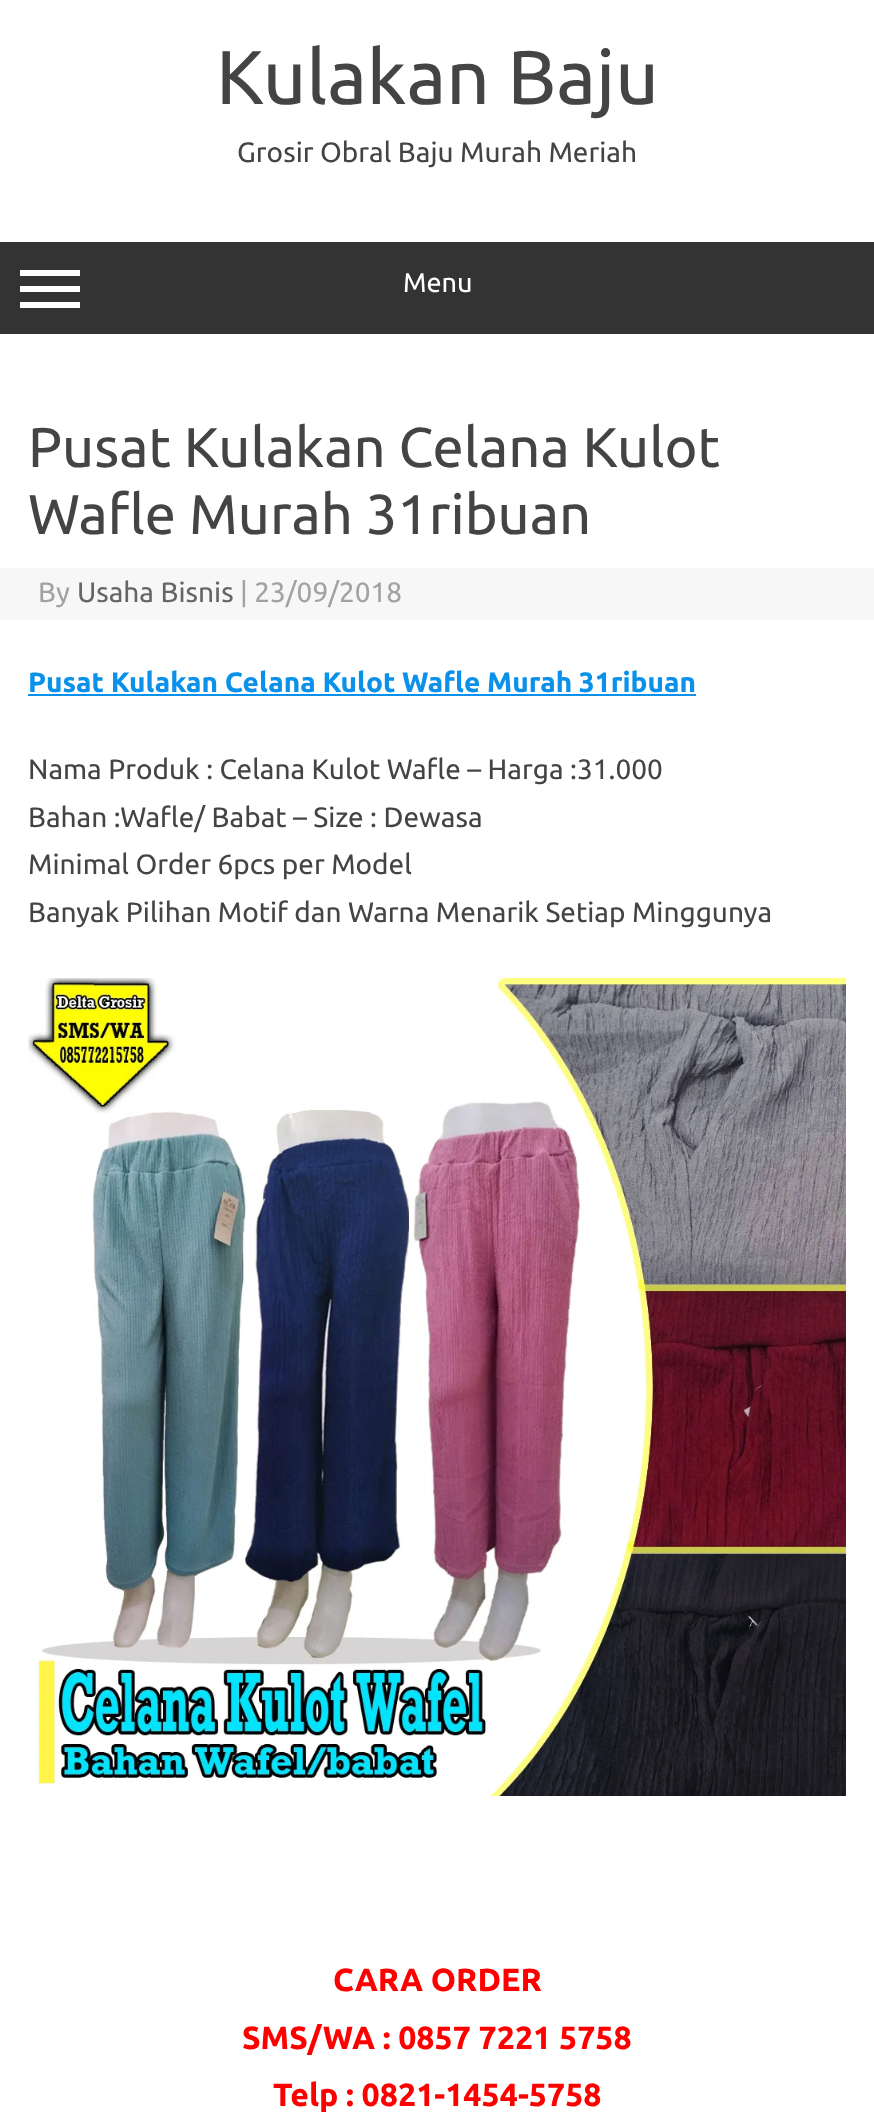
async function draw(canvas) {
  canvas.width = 874;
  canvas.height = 2128;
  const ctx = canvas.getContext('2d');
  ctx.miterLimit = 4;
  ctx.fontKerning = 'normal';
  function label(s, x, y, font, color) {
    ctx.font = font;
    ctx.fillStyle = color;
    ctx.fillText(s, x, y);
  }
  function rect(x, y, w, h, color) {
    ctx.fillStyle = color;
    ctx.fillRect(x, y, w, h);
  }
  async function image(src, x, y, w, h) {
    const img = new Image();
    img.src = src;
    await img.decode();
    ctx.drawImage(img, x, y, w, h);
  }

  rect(0, 0, 874, 2128, '#fff');
  label('Kulakan Baju', 216, 104, '76px Ubuntu', '#444');
  label('Grosir Obral Baju Murah Meriah', 237, 162, '28px Ubuntu', '#444');
  rect(0, 242, 874, 92, '#333');
  rect(20, 270, 60, 6, '#fff');
  rect(20, 286, 60, 6, '#fff');
  rect(20, 302, 60, 6, '#fff');
  label('Menu', 403, 292, '27px Ubuntu', '#fff');
  label('Pusat Kulakan Celana Kulot', 28, 467, '56px Ubuntu', '#444');
  label('Wafle Murah 31ribuan', 28, 534, '56px Ubuntu', '#444');
  rect(0, 568, 874, 52, '#f7f7f7');
  label('By', 38, 602, '28px Ubuntu', '#a2a2a2');
  label('Usaha Bisnis', 77, 602, '28px Ubuntu', '#666');
  label('| 23/09/2018', 240, 602, '28px Ubuntu', '#a2a2a2');
  label('Pusat Kulakan Celana Kulot Wafle Murah 31ribuan', 28, 692, 'bold 28px Ubuntu', '#0b91ea');
  rect(28, 694, 668, 2, '#0b91ea');
  label('Nama Produk : Celana Kulot Wafle – Harga :31.000', 28, 779, '28px Ubuntu', '#444');
  label('Bahan :Wafle/ Babat – Size : Dewasa', 28, 827, '28px Ubuntu', '#444');
  label('Minimal Order 6pcs per Model', 28, 874, '28px Ubuntu', '#444');
  label('Banyak Pilihan Motif dan Warna Menarik Setiap Minggunya', 28, 922, '28px Ubuntu', '#444');
  await image('assets/img1.png', 28, 978, 818, 818);
  label('CARA ORDER', 333, 1991, 'bold 32px Ubuntu', '#f00');
  label('SMS/WA : 0857 7221 5758', 242, 2049, 'bold 32px Ubuntu', '#f00');
  label('Telp : 0821-1454-5758', 273, 2106, 'bold 32px Ubuntu', '#f00');
}

draw(document.querySelector('canvas'));
